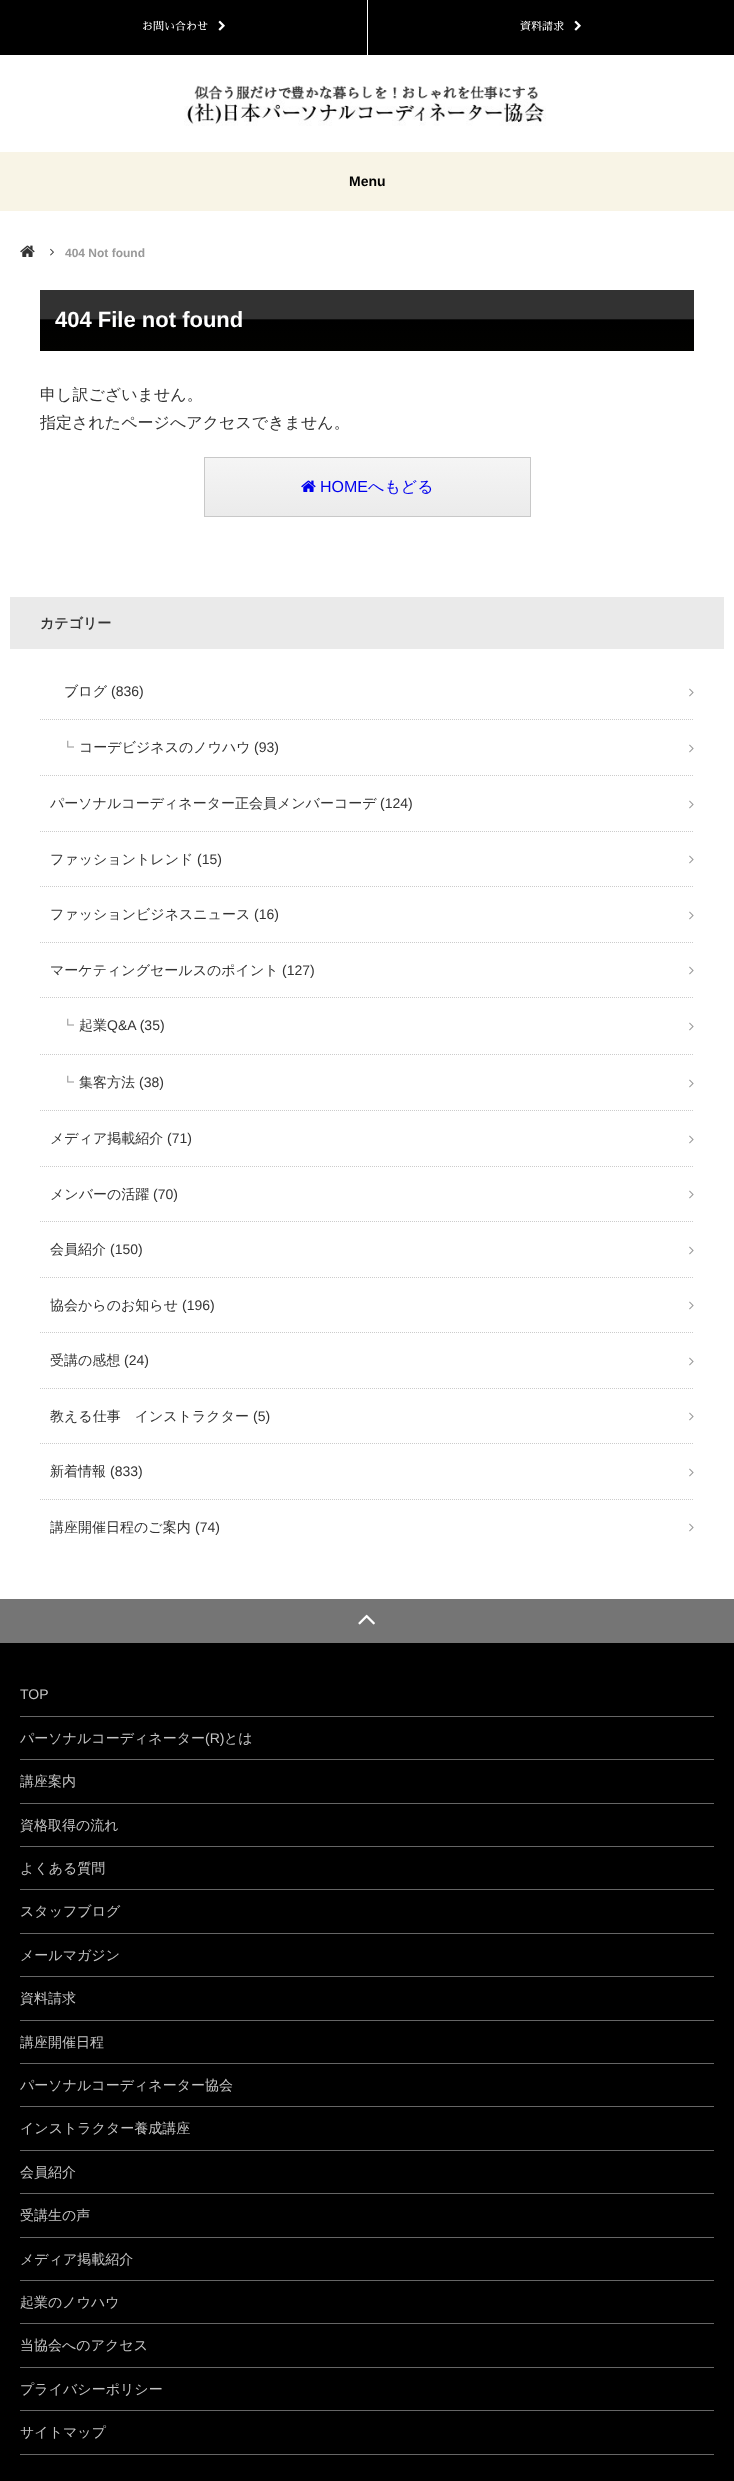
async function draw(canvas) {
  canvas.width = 734;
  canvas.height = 2481;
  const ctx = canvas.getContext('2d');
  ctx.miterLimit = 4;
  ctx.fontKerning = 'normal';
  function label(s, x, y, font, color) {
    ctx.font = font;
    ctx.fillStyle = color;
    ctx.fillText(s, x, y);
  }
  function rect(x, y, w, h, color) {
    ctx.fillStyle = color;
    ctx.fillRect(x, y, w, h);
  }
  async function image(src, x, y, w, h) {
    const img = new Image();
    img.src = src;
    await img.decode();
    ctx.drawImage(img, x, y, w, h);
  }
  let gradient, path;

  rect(0, 0, 734, 2481, '#fff');
  rect(0, 0, 367, 55, '#000');
  label('お問い合わせ', 142, 30, '11px Sawarabi Mincho', '#fff');
  await image('assets/img1.png', 218, 20, 7, 11);
  rect(368, 0, 366, 55, '#000');
  label('資料請求', 520, 30, '11px Sawarabi Mincho', '#fff');
  await image('assets/img1.png', 574, 20, 7, 11);
  await image('assets/img2.png', 184, 85, 362, 41);
  rect(0, 152, 734, 59, '#f8f4e6');
  label('Menu', 349, 186, 'bold 14px Liberation Sans', '#000');
  await image('assets/img3.png', 20, 245, 15, 12);
  await image('assets/img4.png', 50, 248, 4, 8);
  label('404 Not found', 65, 257, 'bold 12px Liberation Sans', '#999');
  gradient = ctx.createLinearGradient(367, 351, 367, 290);
  gradient.addColorStop(0, '#020200');
  gradient.addColorStop(0.51, '#000');
  gradient.addColorStop(0.53, '#323232');
  gradient.addColorStop(1, '#323232');
  ctx.fillStyle = gradient;
  ctx.fillRect(40, 290, 654, 61);
  label('404 File not found', 55, 327, 'bold 22px Liberation Sans', '#fff');
  label('申し訳ございません。', 40, 400, '500 16px WenQuanYi Zen Hei', '#333');
  label('指定されたページへアクセスできません。', 40, 428, '500 16px WenQuanYi Zen Hei', '#333');
  gradient = ctx.createLinearGradient(368, 516, 368, 458);
  gradient.addColorStop(0, '#ebebeb');
  gradient.addColorStop(1, '#f5f5f5');
  ctx.fillStyle = gradient;
  ctx.fillRect(205, 458, 325, 58);
  ctx.strokeStyle = '#c8c8c8';
  ctx.strokeRect(204.5, 457.5, 326, 59);
  await image('assets/img5.png', 301, 480, 15, 12);
  label('HOME', 320, 492, '16px Liberation Sans', '#00e');
  label('へもどる', 368, 492, '500 16px WenQuanYi Zen Hei', '#00e');
  rect(10, 597, 714, 52, '#eaeaea');
  label('カテゴリー', 40, 628, 'bold 14px WenQuanYi Zen Hei', '#333');
  label('ブログ', 64, 696, '500 14px WenQuanYi Zen Hei', '#333');
  label('(836)', 111, 696, '14px Liberation Sans', '#333');
  await image('assets/img6.png', 689, 688, 5, 9);
  path = new Path2D('M40 719.5H694');
  ctx.strokeStyle = '#ccc';
  ctx.setLineDash([1, 1]);
  ctx.stroke(path);
  label('┗', 61, 752, '500 13px WenQuanYi Zen Hei', '#999');
  label('コーデビジネスのノウハウ', 79, 752, '500 14px WenQuanYi Zen Hei', '#333');
  label('(93)', 254, 752, '14px Liberation Sans', '#333');
  await image('assets/img6.png', 689, 744, 5, 9);
  path = new Path2D('M40 775.5H694');
  ctx.stroke(path);
  label('パーソナルコーディネーター正会員メンバーコーデ', 50, 808, '500 14px WenQuanYi Zen Hei', '#333');
  label('(124)', 380, 808, '14px Liberation Sans', '#333');
  await image('assets/img6.png', 689, 800, 5, 9);
  path = new Path2D('M40 831.5H694');
  ctx.stroke(path);
  label('ファッショントレンド', 50, 864, '500 14px WenQuanYi Zen Hei', '#333');
  label('(15)', 197, 864, '14px Liberation Sans', '#333');
  await image('assets/img6.png', 689, 855, 5, 9);
  path = new Path2D('M40 886.5H694');
  ctx.stroke(path);
  label('ファッションビジネスニュース', 50, 919, '500 14px WenQuanYi Zen Hei', '#333');
  label('(16)', 254, 919, '14px Liberation Sans', '#333');
  await image('assets/img6.png', 689, 911, 5, 9);
  path = new Path2D('M40 942.5H694');
  ctx.stroke(path);
  label('マーケティングセールスのポイント', 50, 975, '500 14px WenQuanYi Zen Hei', '#333');
  label('(127)', 282, 975, '14px Liberation Sans', '#333');
  await image('assets/img6.png', 689, 966, 5, 9);
  path = new Path2D('M40 997.5H694');
  ctx.stroke(path);
  label('┗', 61, 1030, '500 13px WenQuanYi Zen Hei', '#999');
  label('起業', 79, 1030, '500 14px WenQuanYi Zen Hei', '#333');
  label('Q&A (35)', 107, 1030, '14px Liberation Sans', '#333');
  await image('assets/img6.png', 689, 1022, 5, 9);
  path = new Path2D('M40 1054.5H694');
  ctx.stroke(path);
  label('┗', 61, 1087, '500 13px WenQuanYi Zen Hei', '#999');
  label('集客方法', 79, 1087, '500 14px WenQuanYi Zen Hei', '#333');
  label('(38)', 139, 1087, '14px Liberation Sans', '#333');
  await image('assets/img6.png', 689, 1079, 5, 9);
  path = new Path2D('M40 1110.5H694');
  ctx.stroke(path);
  label('メディア掲載紹介', 50, 1143, '500 14px WenQuanYi Zen Hei', '#333');
  label('(71)', 167, 1143, '14px Liberation Sans', '#333');
  await image('assets/img6.png', 689, 1135, 5, 9);
  path = new Path2D('M40 1166.5H694');
  ctx.stroke(path);
  label('メンバーの活躍', 50, 1199, '500 14px WenQuanYi Zen Hei', '#333');
  label('(70)', 153, 1199, '14px Liberation Sans', '#333');
  await image('assets/img6.png', 689, 1190, 5, 9);
  path = new Path2D('M40 1221.5H694');
  ctx.stroke(path);
  label('会員紹介', 50, 1254, '500 14px WenQuanYi Zen Hei', '#333');
  label('(150)', 110, 1254, '14px Liberation Sans', '#333');
  await image('assets/img6.png', 689, 1246, 5, 9);
  path = new Path2D('M40 1277.5H694');
  ctx.stroke(path);
  label('協会からのお知らせ', 50, 1310, '500 14px WenQuanYi Zen Hei', '#333');
  label('(196)', 182, 1310, '14px Liberation Sans', '#333');
  await image('assets/img6.png', 689, 1301, 5, 9);
  path = new Path2D('M40 1332.5H694');
  ctx.stroke(path);
  label('受講の感想', 50, 1365, '500 14px WenQuanYi Zen Hei', '#333');
  label('(24)', 124, 1365, '14px Liberation Sans', '#333');
  await image('assets/img6.png', 689, 1357, 5, 9);
  path = new Path2D('M40 1388.5H694');
  ctx.stroke(path);
  label('教える仕事　インストラクター', 50, 1421, '500 14px WenQuanYi Zen Hei', '#333');
  label('(5)', 253, 1421, '14px Liberation Sans', '#333');
  await image('assets/img6.png', 689, 1412, 5, 9);
  path = new Path2D('M40 1443.5H694');
  ctx.stroke(path);
  label('新着情報', 50, 1476, '500 14px WenQuanYi Zen Hei', '#333');
  label('(833)', 110, 1476, '14px Liberation Sans', '#333');
  await image('assets/img6.png', 689, 1468, 5, 9);
  path = new Path2D('M40 1499.5H694');
  ctx.stroke(path);
  label('講座開催日程のご案内', 50, 1532, '500 14px WenQuanYi Zen Hei', '#333');
  label('(74)', 195, 1532, '14px Liberation Sans', '#333');
  await image('assets/img6.png', 689, 1523, 5, 9);
  rect(0, 1599, 734, 44, '#757575');
  await image('assets/img7.png', 358, 1614, 17, 11);
  rect(0, 1643, 734, 838, '#000');
  rect(20, 1716, 694, 1, '#666');
  label('TOP', 20, 1699, '14px Liberation Sans', '#c3c3c3');
  rect(20, 1759, 694, 1, '#666');
  label('パーソナルコーディネーター', 20, 1743, '500 14px WenQuanYi Zen Hei', '#c3c3c3');
  label('(R)', 205, 1743, '14px Liberation Sans', '#c3c3c3');
  label('とは', 224, 1743, '500 14px WenQuanYi Zen Hei', '#c3c3c3');
  rect(20, 1803, 694, 1, '#666');
  label('講座案内', 20, 1786, '500 14px WenQuanYi Zen Hei', '#c3c3c3');
  rect(20, 1846, 694, 1, '#666');
  label('資格取得の流れ', 20, 1830, '500 14px WenQuanYi Zen Hei', '#c3c3c3');
  rect(20, 1889, 694, 1, '#666');
  label('よくある質問', 20, 1873, '500 14px WenQuanYi Zen Hei', '#c3c3c3');
  rect(20, 1933, 694, 1, '#666');
  label('スタッフブログ', 20, 1916, '500 14px WenQuanYi Zen Hei', '#c3c3c3');
  rect(20, 1976, 694, 1, '#666');
  label('メールマガジン', 20, 1960, '500 14px WenQuanYi Zen Hei', '#c3c3c3');
  rect(20, 2020, 694, 1, '#666');
  label('資料請求', 20, 2003, '500 14px WenQuanYi Zen Hei', '#c3c3c3');
  rect(20, 2063, 694, 1, '#666');
  label('講座開催日程', 20, 2047, '500 14px WenQuanYi Zen Hei', '#c3c3c3');
  rect(20, 2106, 694, 1, '#666');
  label('パーソナルコーディネーター協会', 20, 2090, '500 14px WenQuanYi Zen Hei', '#c3c3c3');
  rect(20, 2150, 694, 1, '#666');
  label('インストラクター養成講座', 20, 2133, '500 14px WenQuanYi Zen Hei', '#c3c3c3');
  rect(20, 2193, 694, 1, '#666');
  label('会員紹介', 20, 2177, '500 14px WenQuanYi Zen Hei', '#c3c3c3');
  rect(20, 2237, 694, 1, '#666');
  label('受講生の声', 20, 2220, '500 14px WenQuanYi Zen Hei', '#c3c3c3');
  rect(20, 2280, 694, 1, '#666');
  label('メディア掲載紹介', 20, 2264, '500 14px WenQuanYi Zen Hei', '#c3c3c3');
  rect(20, 2323, 694, 1, '#666');
  label('起業のノウハウ', 20, 2307, '500 14px WenQuanYi Zen Hei', '#c3c3c3');
  rect(20, 2367, 694, 1, '#666');
  label('当協会へのアクセス', 20, 2350, '500 14px WenQuanYi Zen Hei', '#c3c3c3');
  rect(20, 2410, 694, 1, '#666');
  label('プライバシーポリシー', 20, 2394, '500 14px WenQuanYi Zen Hei', '#c3c3c3');
  rect(20, 2454, 694, 1, '#666');
  label('サイトマップ', 20, 2437, '500 14px WenQuanYi Zen Hei', '#c3c3c3');
}

draw(document.querySelector('canvas'));
